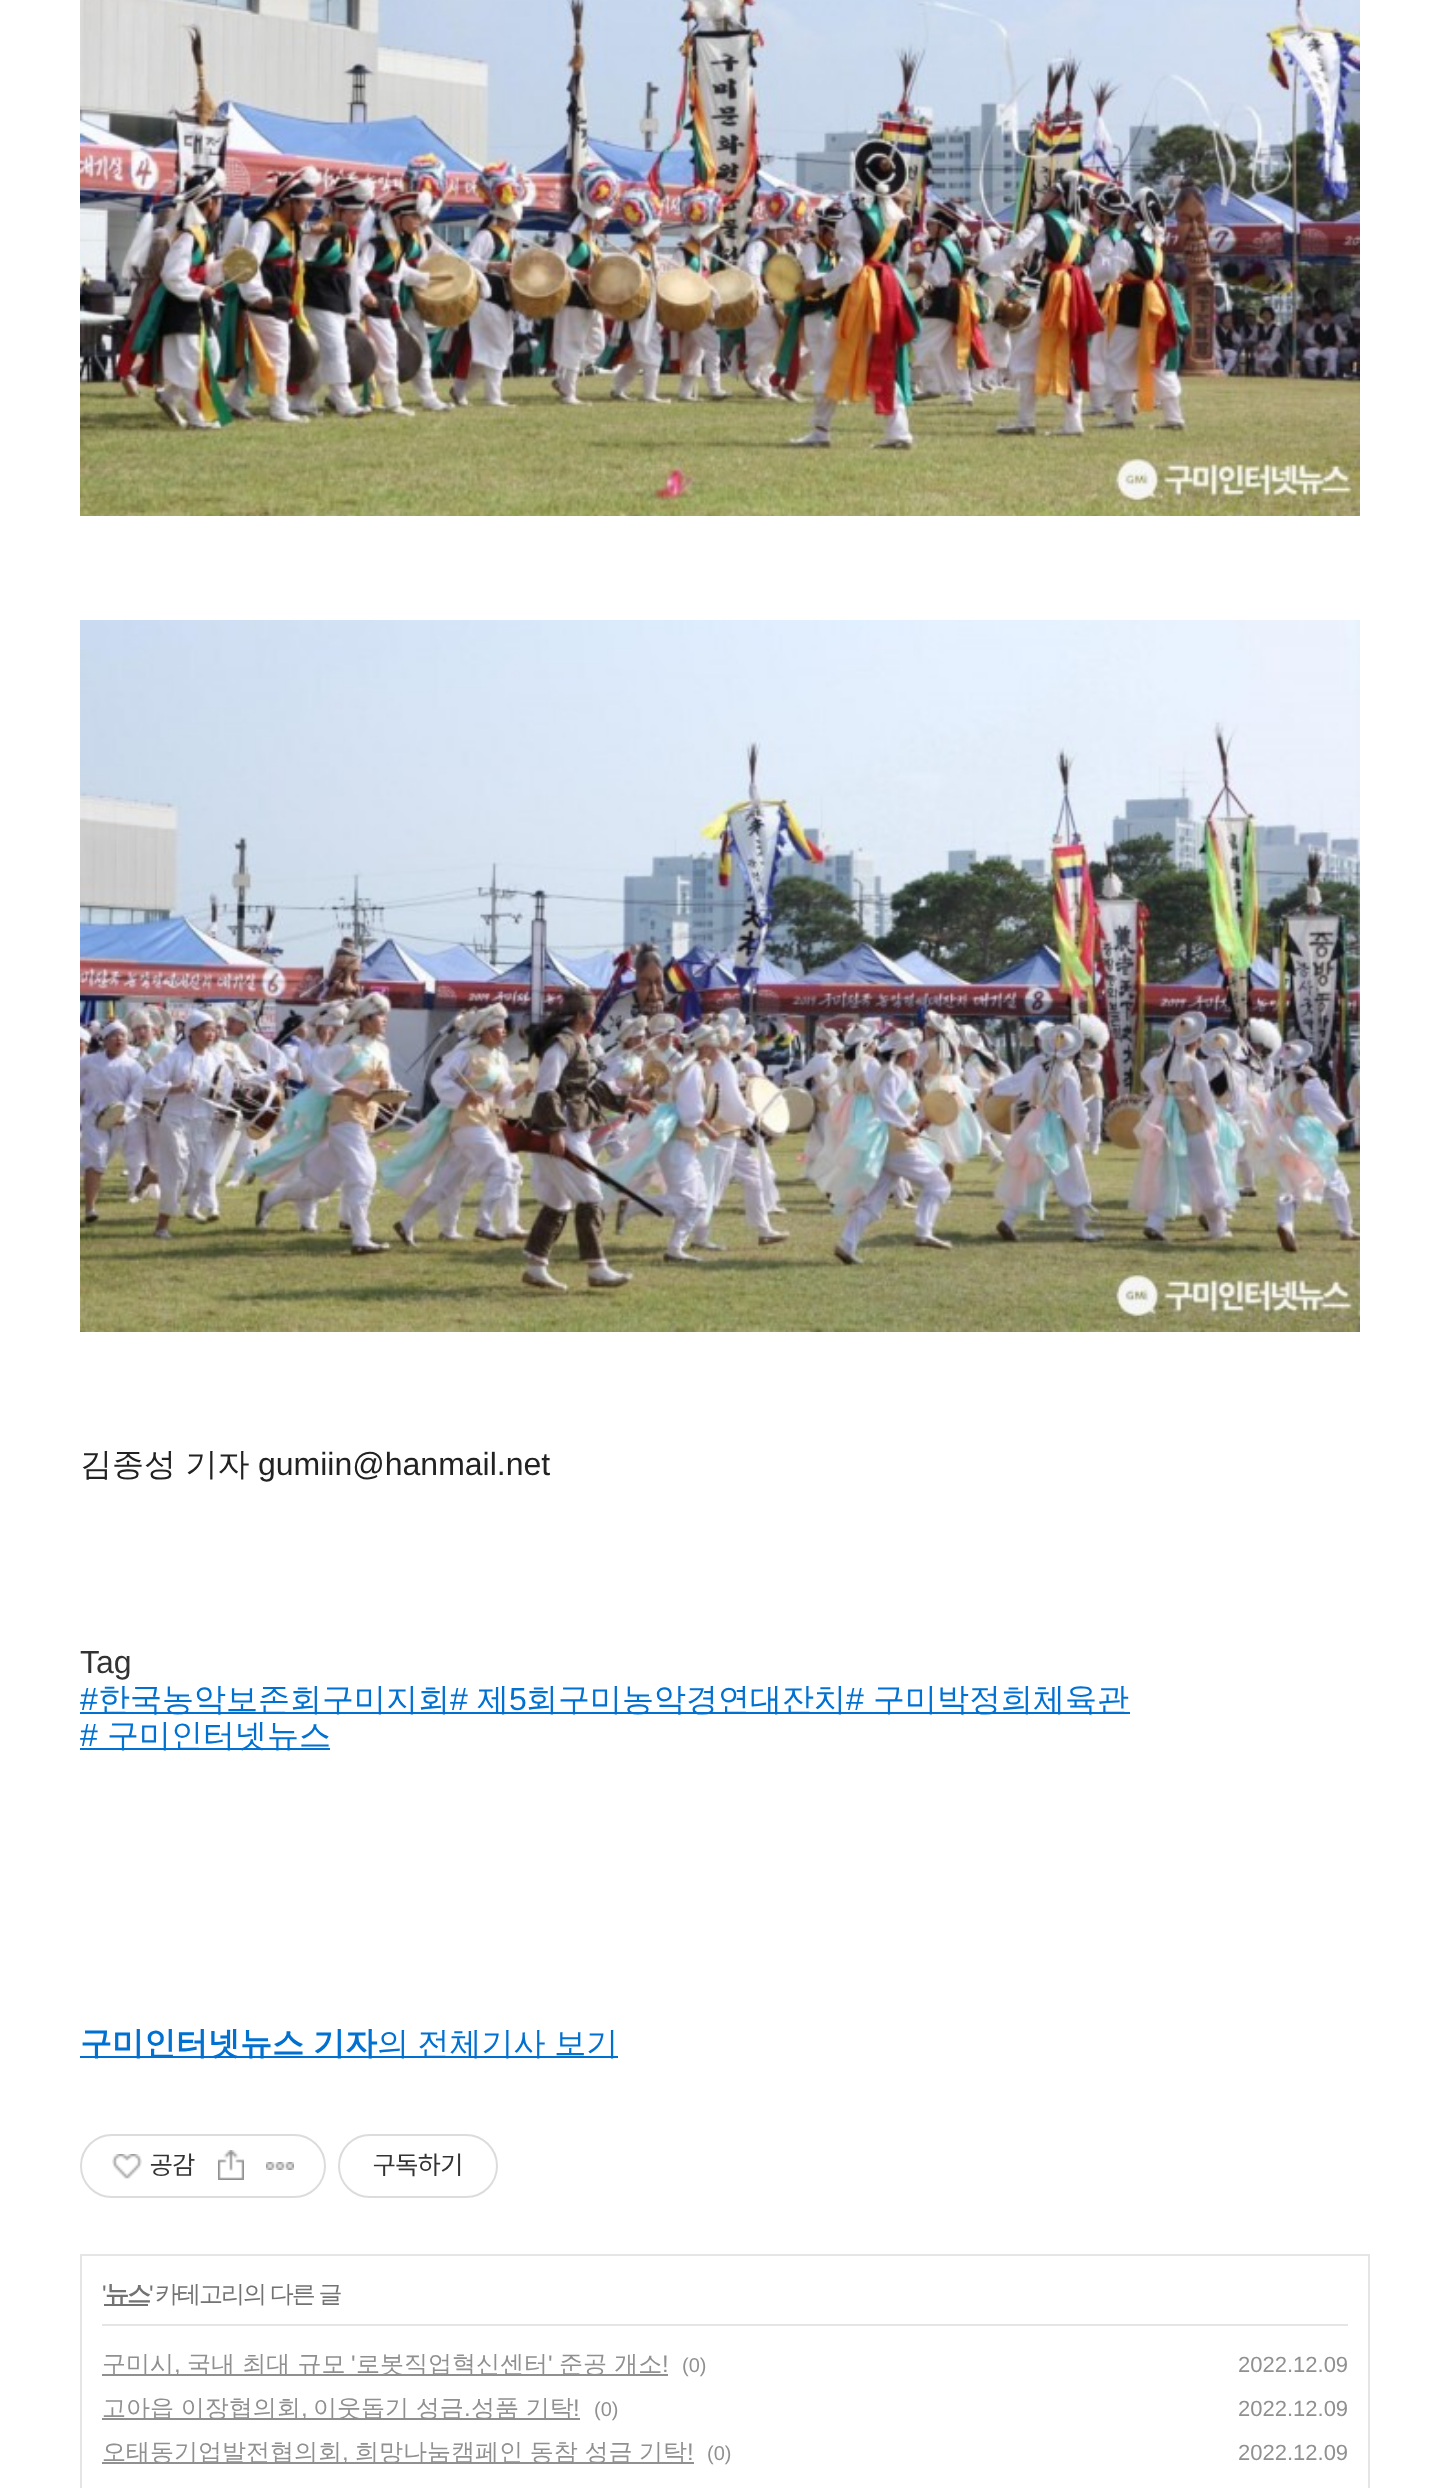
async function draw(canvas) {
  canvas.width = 1450;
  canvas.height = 2488;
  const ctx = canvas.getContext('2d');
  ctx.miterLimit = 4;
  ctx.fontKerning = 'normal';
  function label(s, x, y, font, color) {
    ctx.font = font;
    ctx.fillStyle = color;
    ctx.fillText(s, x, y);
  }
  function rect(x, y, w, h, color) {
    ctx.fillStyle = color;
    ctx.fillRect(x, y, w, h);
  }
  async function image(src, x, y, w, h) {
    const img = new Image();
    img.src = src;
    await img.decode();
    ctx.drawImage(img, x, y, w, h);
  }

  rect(0, 0, 1450, 2488, '#fff');
  await image('assets/img1.png', 80, 0, 1280, 516);
  await image('assets/img2.png', 80, 620, 1280, 712);
  label('김종성 기자', 80, 1475, '500 32px WenQuanYi Zen Hei', '#222');
  label('gumiin@hanmail.net', 258, 1475, '32px Liberation Sans', '#222');
  label('Tag', 80, 1673, '32px Liberation Sans', '#333');
  label('#', 80, 1710, '32px Liberation Sans', '#0070d1');
  rect(80, 1712, 1050, 2, '#0070d1');
  label('한국농악보존회구미지회', 98, 1710, '500 32px WenQuanYi Zen Hei', '#0070d1');
  label('#', 450, 1710, '32px Liberation Sans', '#0070d1');
  label('제', 477, 1710, '500 32px WenQuanYi Zen Hei', '#0070d1');
  label('5', 509, 1710, '32px Liberation Sans', '#0070d1');
  label('회구미농악경연대잔치', 526, 1710, '500 32px WenQuanYi Zen Hei', '#0070d1');
  label('#', 846, 1710, '32px Liberation Sans', '#0070d1');
  label('구미박정희체육관', 873, 1710, '500 32px WenQuanYi Zen Hei', '#0070d1');
  label('#', 80, 1746, '32px Liberation Sans', '#0070d1');
  rect(80, 1748, 250, 2, '#0070d1');
  label('구미인터넷뉴스', 107, 1746, '500 32px WenQuanYi Zen Hei', '#0070d1');
  rect(80, 2056, 296, 2, '#0070d1');
  label('구미인터넷뉴스', 80, 2054, 'bold 32px WenQuanYi Zen Hei', '#0070d1');
  label('기자', 313, 2054, 'bold 32px WenQuanYi Zen Hei', '#0070d1');
  rect(376, 2056, 242, 2, '#0070d1');
  ctx.wordSpacing = '-1px';
  label('의 전체기사 보기', 377, 2054, '500 32px WenQuanYi Zen Hei', '#0070d1');
  ctx.beginPath();
  ctx.roundRect(81, 2135, 244, 62, 31);
  ctx.strokeStyle = '#dcdcdc';
  ctx.lineWidth = 2;
  ctx.stroke();
  await image('assets/img3.png', 112, 2154, 30, 25);
  ctx.wordSpacing = '0px';
  label('공감', 150, 2174, '26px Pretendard', '#333');
  await image('assets/img4.png', 218, 2150, 26, 30);
  await image('assets/img5.png', 266, 2162, 28, 8);
  ctx.beginPath();
  ctx.roundRect(339, 2135, 158, 62, 31);
  ctx.stroke();
  label('구독하기', 373, 2174, '26px Pretendard', '#333');
  ctx.strokeStyle = '#e5e5e5';
  ctx.strokeRect(81, 2255, 1288, 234);
  rect(102, 2324, 1246, 2, '#e5e5e5');
  ctx.letterSpacing = '-2px';
  label('\'', 102, 2302, '24px Liberation Sans', '#737373');
  rect(104, 2304, 44, 2, '#737373');
  label('뉴스', 105, 2302, 'bold 24px WenQuanYi Zen Hei', '#737373');
  label('\'', 149, 2302, '24px Liberation Sans', '#737373');
  ctx.wordSpacing = '-0.5px';
  label('카테고리의 다른 글', 155, 2302, '500 24px WenQuanYi Zen Hei', '#737373');
  rect(102, 2374, 566, 2, '#909090');
  ctx.letterSpacing = '0px';
  ctx.wordSpacing = '0px';
  label('구미시', 102, 2372, '500 24px WenQuanYi Zen Hei', '#909090');
  label(',', 174, 2372, '24px Liberation Sans', '#909090');
  label('국내 최대 규모', 187, 2372, '500 24px WenQuanYi Zen Hei', '#909090');
  label('\'', 351, 2372, '24px Liberation Sans', '#909090');
  label('로봇직업혁신센터', 356, 2372, '500 24px WenQuanYi Zen Hei', '#909090');
  label('\'', 548, 2372, '24px Liberation Sans', '#909090');
  label('준공 개소', 559, 2372, '500 24px WenQuanYi Zen Hei', '#909090');
  label('!', 662, 2372, '24px Liberation Sans', '#909090');
  label('(0)', 682, 2372, '20px Liberation Sans', '#909090');
  label('2022.12.09', 1238, 2372, '22px Liberation Sans', '#909090');
  rect(102, 2418, 478, 2, '#909090');
  ctx.wordSpacing = '-0.5px';
  label('고아읍 이장협의회', 102, 2416, '500 24px WenQuanYi Zen Hei', '#909090');
  ctx.wordSpacing = '0px';
  label(',', 301, 2416, '24px Liberation Sans', '#909090');
  ctx.wordSpacing = '-0.5px';
  label('이웃돕기 성금', 313, 2416, '500 24px WenQuanYi Zen Hei', '#909090');
  ctx.wordSpacing = '0px';
  label('.', 464, 2416, '24px Liberation Sans', '#909090');
  ctx.wordSpacing = '-0.5px';
  label('성품 기탁', 471, 2416, '500 24px WenQuanYi Zen Hei', '#909090');
  ctx.wordSpacing = '0px';
  label('!', 573, 2416, '24px Liberation Sans', '#909090');
  label('(0)', 594, 2416, '20px Liberation Sans', '#909090');
  label('2022.12.09', 1238, 2416, '22px Liberation Sans', '#909090');
  rect(102, 2462, 592, 2, '#909090');
  label('오태동기업발전협의회', 102, 2460, '500 24px WenQuanYi Zen Hei', '#909090');
  label(',', 342, 2460, '24px Liberation Sans', '#909090');
  ctx.wordSpacing = '-0.5px';
  label('희망나눔캠페인 동참 성금 기탁', 355, 2460, '500 24px WenQuanYi Zen Hei', '#909090');
  ctx.wordSpacing = '0px';
  label('!', 687, 2460, '24px Liberation Sans', '#909090');
  label('(0)', 707, 2460, '20px Liberation Sans', '#909090');
  label('2022.12.09', 1238, 2460, '22px Liberation Sans', '#909090');
}

draw(document.querySelector('canvas'));
